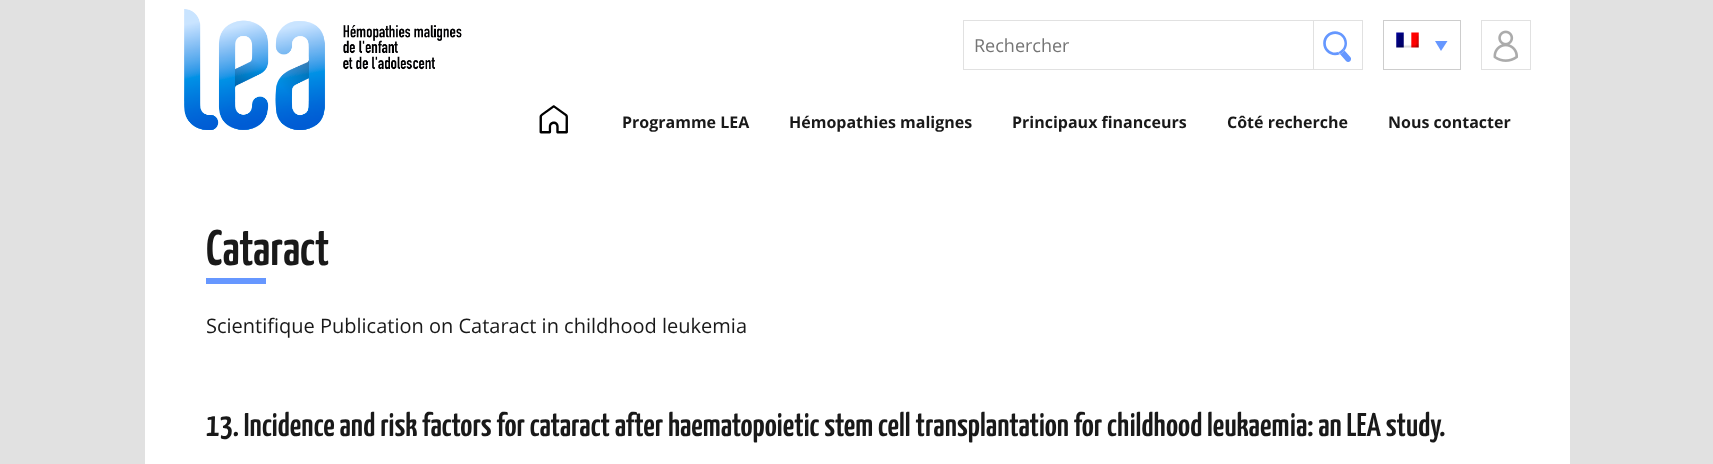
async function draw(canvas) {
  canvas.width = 1713;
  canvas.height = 464;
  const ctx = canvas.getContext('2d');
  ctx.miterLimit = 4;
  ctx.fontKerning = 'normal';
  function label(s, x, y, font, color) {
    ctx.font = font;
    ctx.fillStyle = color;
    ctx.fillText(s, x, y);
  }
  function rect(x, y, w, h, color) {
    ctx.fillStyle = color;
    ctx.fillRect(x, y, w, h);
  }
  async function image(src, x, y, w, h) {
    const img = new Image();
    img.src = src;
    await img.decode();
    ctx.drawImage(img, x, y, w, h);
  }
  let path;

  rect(0, 0, 1713, 464, '#e1e1e1');
  rect(145, 0, 1425, 464, '#fff');
  await image('assets/img1.png', 184, 9, 278, 121);
  ctx.strokeStyle = '#e1e1e1';
  ctx.strokeRect(963.5, 20.5, 399, 49);
  label('Rechercher', 974, 52, '18px Open Sans', '#757575');
  ctx.strokeRect(1313.5, 20.5, 49, 49);
  await image('assets/img2.png', 1323, 31, 28, 31);
  ctx.strokeStyle = '#cdcdcd';
  ctx.strokeRect(1383.5, 20.5, 77, 49);
  await image('assets/img3.png', 1396, 32, 23, 16);
  ctx.fillStyle = '#6697ff';
  path = new Path2D('M1435 41H1447.5L1441 51Z');
  ctx.fill(path);
  ctx.strokeStyle = '#e1e1e1';
  ctx.strokeRect(1481.5, 20.5, 49, 49);
  await image('assets/img4.png', 1493, 30, 25, 32);
  await image('assets/img5.png', 539, 105, 29, 29);
  label('Programme LEA', 622, 128, 'bold 16px Open Sans', '#191919');
  label('Hémopathies malignes', 789, 128, 'bold 16px Open Sans', '#191919');
  label('Principaux financeurs', 1012, 128, 'bold 16px Open Sans', '#191919');
  label('Côté recherche', 1227, 128, 'bold 16px Open Sans', '#191919');
  label('Nous contacter', 1388, 128, 'bold 16px Open Sans', '#191919');
  label('Cataract', 206, 265, '200 50px Yanone Kaffeesatz', '#191919');
  rect(206, 278, 60, 6, '#6697ff');
  label('Scientifique Publication on Cataract in childhood leukemia', 206, 333, '20px Open Sans', '#191919');
  label('13. Incidence and risk factors for cataract after haematopoietic stem cell transplantation for childhood leukaemia: an LEA study.', 206, 436, '200 33px Yanone Kaffeesatz', '#191919');
}

draw(document.querySelector('canvas'));
